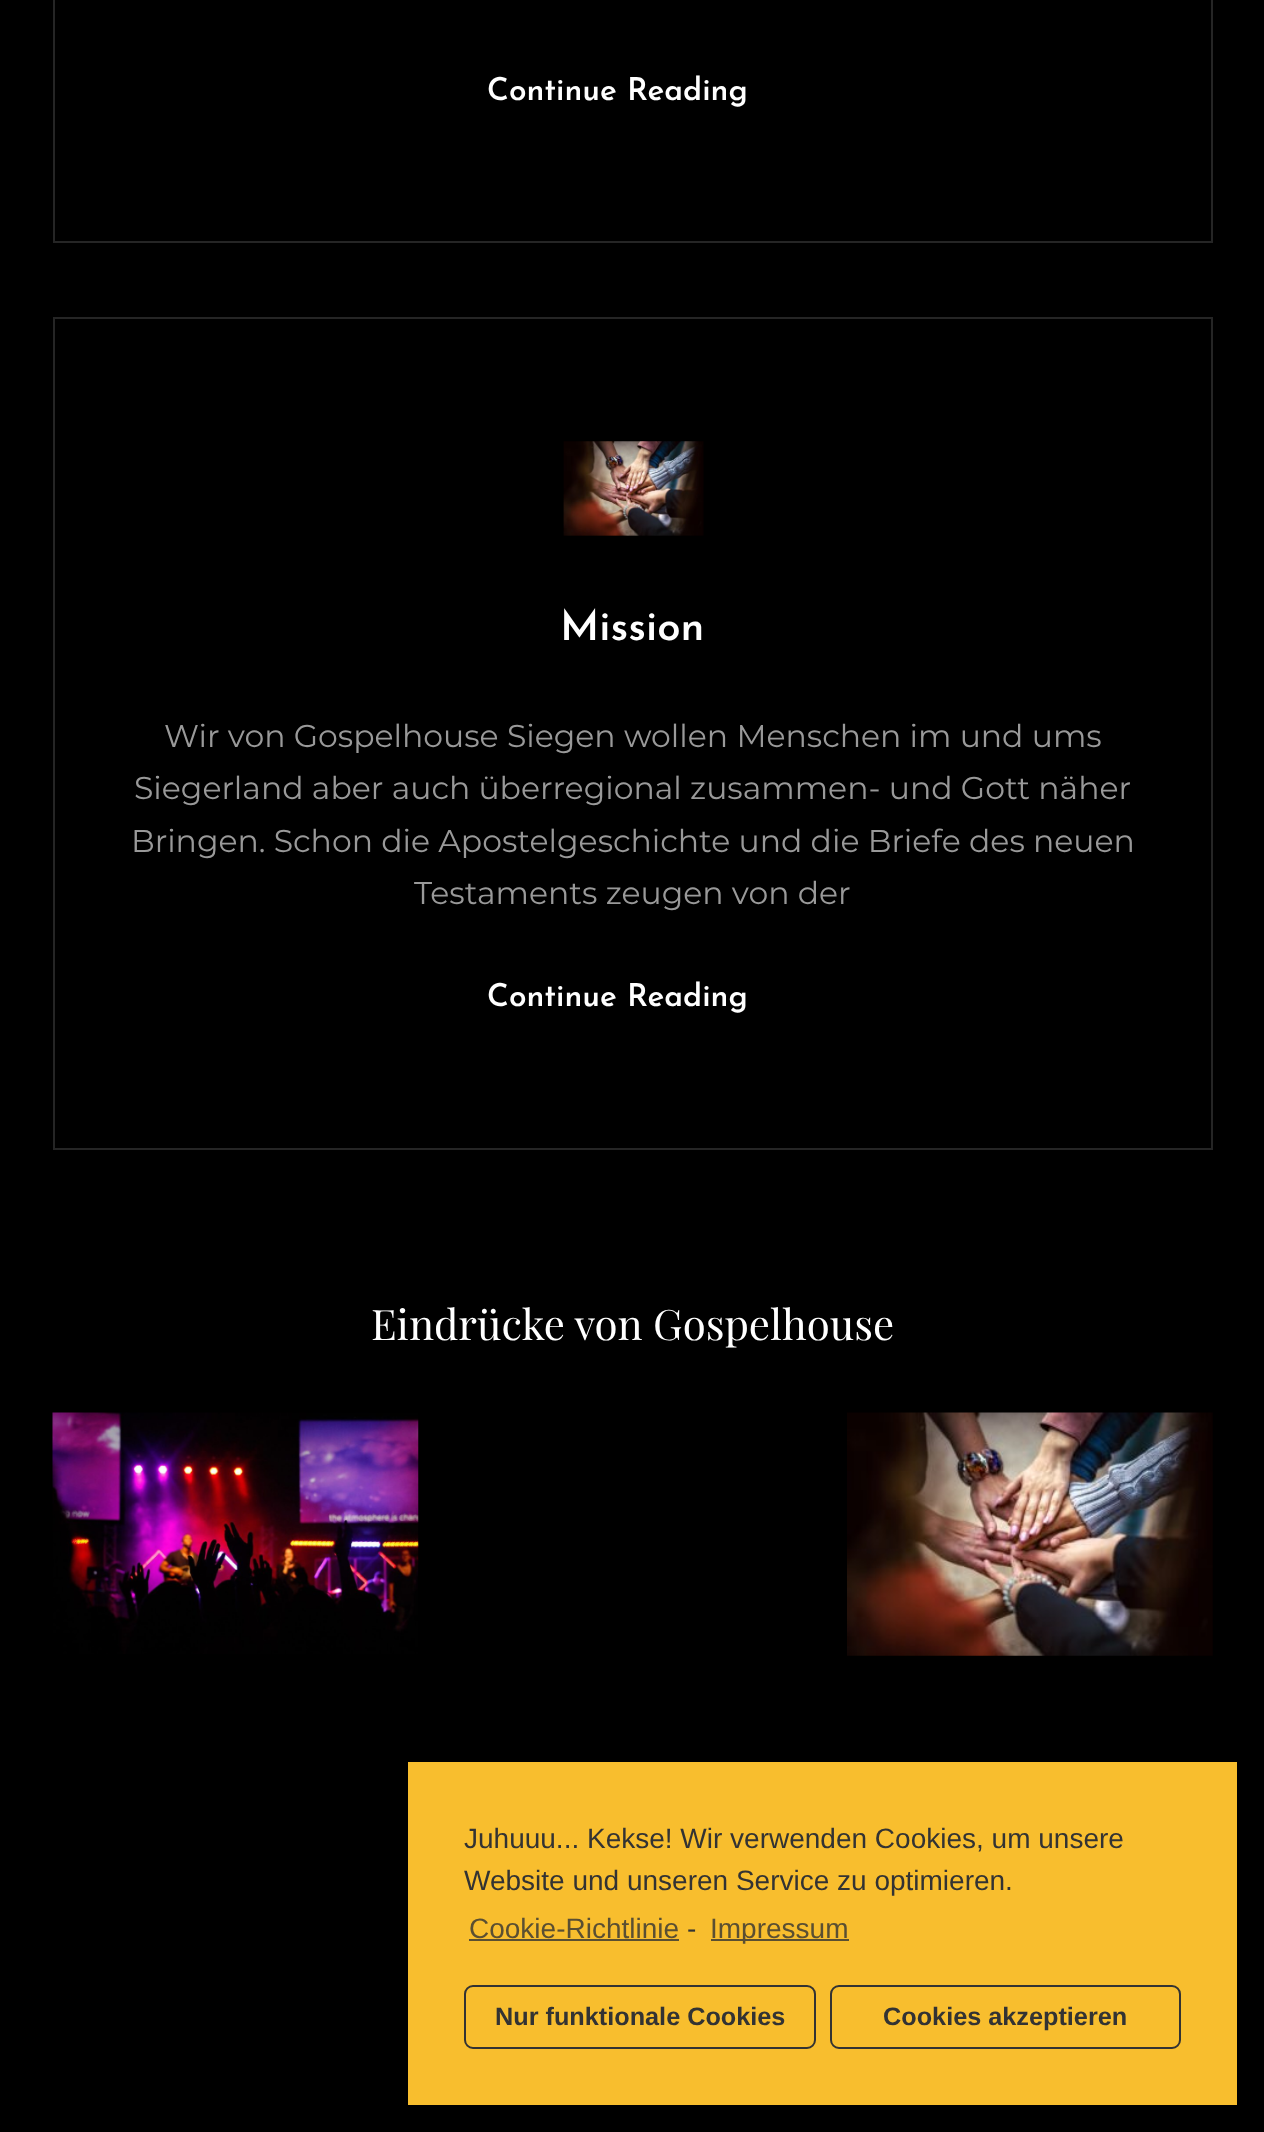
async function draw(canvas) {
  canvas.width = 1264;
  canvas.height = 2132;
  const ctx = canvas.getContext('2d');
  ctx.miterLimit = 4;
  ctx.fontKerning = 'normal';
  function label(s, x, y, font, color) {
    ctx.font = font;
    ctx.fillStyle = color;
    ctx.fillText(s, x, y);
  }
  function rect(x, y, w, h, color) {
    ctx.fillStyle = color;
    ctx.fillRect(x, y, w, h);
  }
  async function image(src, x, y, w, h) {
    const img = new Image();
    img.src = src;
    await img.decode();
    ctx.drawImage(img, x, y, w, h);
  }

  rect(0, 0, 1264, 2132, '#000');
  ctx.strokeStyle = '#252525';
  ctx.lineWidth = 2;
  ctx.strokeRect(54, -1, 1158, 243);
  label('Continue Reading', 487, 100, '600 31.5px Josefin Sans', '#fff');
  ctx.strokeRect(54, 318, 1158, 831);
  await image('assets/img1.png', 563, 441, 141, 95);
  label('Mission', 560, 640, '600 42px Josefin Sans', '#fff');
  label('Wir von Gospelhouse Siegen wollen Menschen im und ums', 164, 747, '31.5px Montserrat', '#999');
  label('Siegerland aber auch überregional zusammen- und Gott näher', 134, 799, '31.5px Montserrat', '#999');
  label('Bringen. Schon die Apostelgeschichte und die Briefe des neuen', 131, 852, '31.5px Montserrat', '#999');
  label('Testaments zeugen von der', 414, 904, '31.5px Montserrat', '#999');
  label('Continue Reading', 487, 1006, '600 31.5px Josefin Sans', '#fff');
  label('Eindrücke von Gospelhouse', 371, 1340, '42px Playfair Display', '#fff');
  await image('assets/img2.png', 52, 1412, 367, 242);
  await image('assets/img3.png', 847, 1412, 366, 244);
  rect(408, 1762, 829, 343, '#f8be2e');
  label('Juhuuu... Kekse! Wir verwenden Cookies, um unsere', 464, 1848, '28px Liberation Sans', '#333');
  label('Website und unseren Service zu optimieren.', 464, 1890, '28px Liberation Sans', '#333');
  label('Cookie-Richtlinie', 469, 1938, '28px Liberation Sans', '#5a4f32');
  rect(469, 1939, 210, 2, '#5a4f32');
  label('-', 687, 1938, '28px Liberation Sans', '#333');
  rect(711, 1939, 138, 2, '#5a4f32');
  label('Impressum', 710, 1938, '28px Liberation Sans', '#5a4f32');
  ctx.beginPath();
  ctx.roundRect(465, 1986, 350, 62, 8);
  ctx.strokeStyle = '#333';
  ctx.stroke();
  label('Nur funktionale Cookies', 495, 2025, 'bold 25.25px Liberation Sans', '#333');
  ctx.beginPath();
  ctx.roundRect(831, 1986, 349, 62, 8);
  ctx.stroke();
  label('Cookies akzeptieren', 883, 2025, 'bold 25.25px Liberation Sans', '#333');
}

draw(document.querySelector('canvas'));
